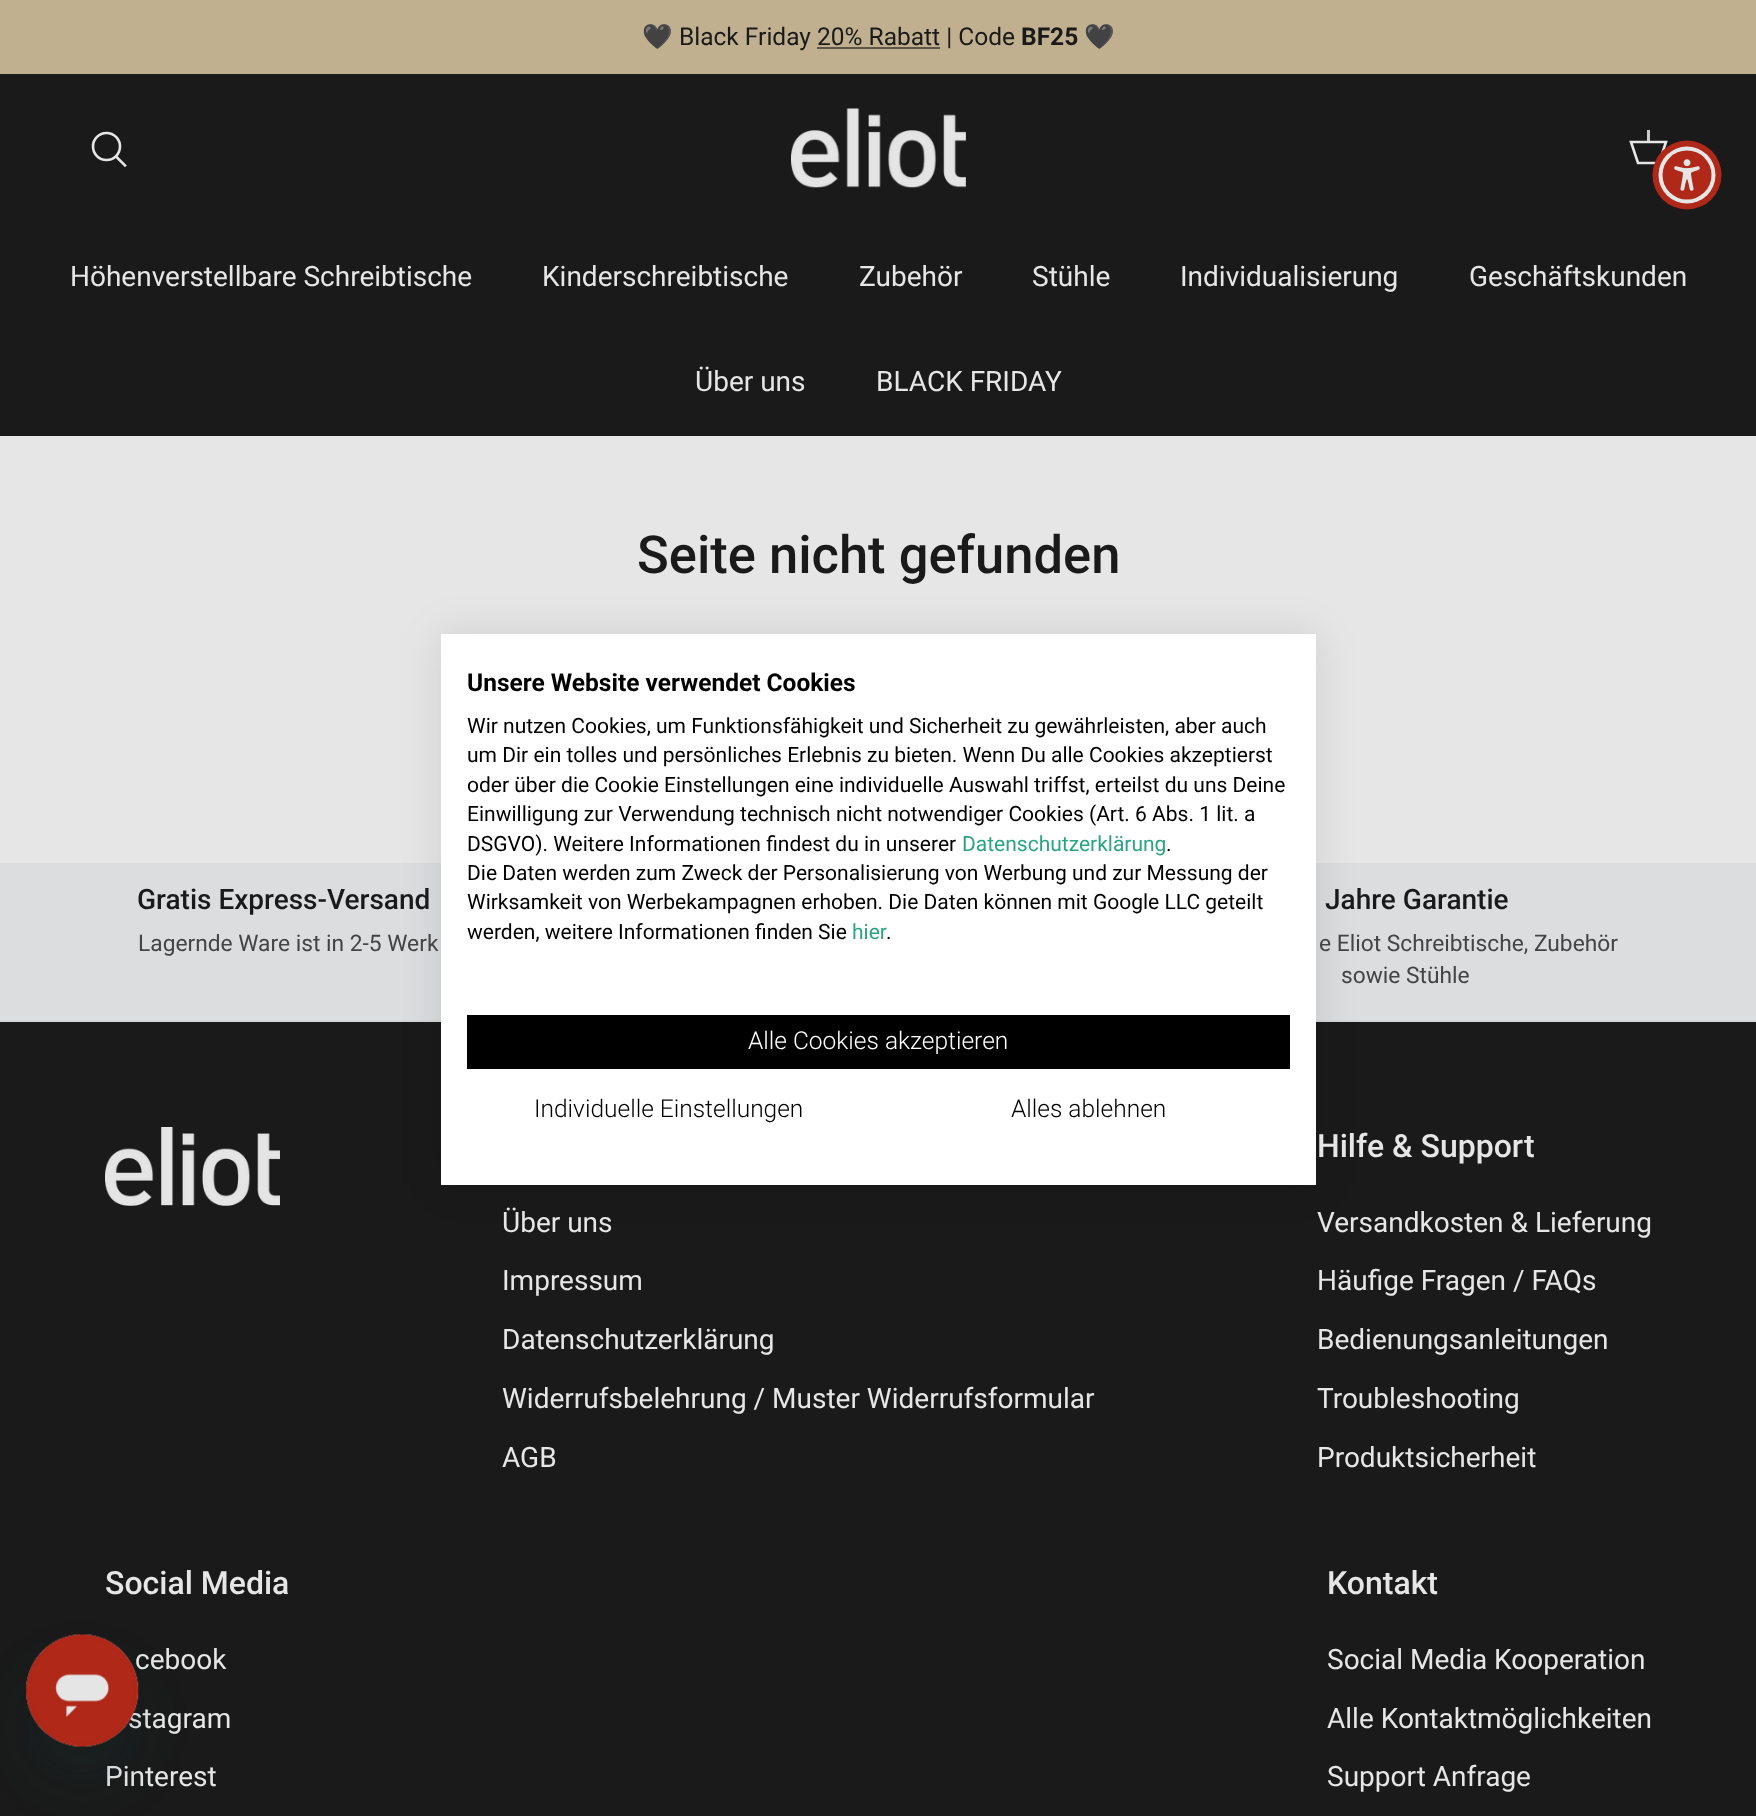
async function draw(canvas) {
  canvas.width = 1756;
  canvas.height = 1816;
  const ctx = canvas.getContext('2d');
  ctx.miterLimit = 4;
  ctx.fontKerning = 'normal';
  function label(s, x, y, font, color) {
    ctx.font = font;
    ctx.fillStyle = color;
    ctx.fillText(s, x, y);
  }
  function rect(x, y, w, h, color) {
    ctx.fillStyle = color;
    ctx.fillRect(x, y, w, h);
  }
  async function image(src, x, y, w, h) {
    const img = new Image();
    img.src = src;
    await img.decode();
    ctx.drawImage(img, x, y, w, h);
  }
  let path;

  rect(0, 0, 1756, 1816, '#e6e6e6');
  rect(0, 0, 1756, 74, '#c1b090');
  label('🖤', 642, 45, '24.5px Noto Color Emoji', '#1a1a1a');
  label('Black Friday 20% Rabatt | Code', 679, 45, '24.5px Roboto', '#1a1a1a');
  label('BF25', 1021, 45, 'bold 24.5px Roboto', '#1a1a1a');
  label('🖤', 1084, 45, '24.5px Noto Color Emoji', '#1a1a1a');
  rect(817, 47, 123, 2, '#5d5649');
  rect(0, 74, 1756, 362, '#1a1a1a');
  path = new Path2D('M1631 142H1666L1659 163H1638Z');
  ctx.strokeStyle = '#e6e6e6';
  ctx.lineWidth = 2.6;
  ctx.stroke(path);
  ctx.fillStyle = '#af2818';
  ctx.beginPath();
  ctx.arc(1687, 175, 34.5, 0, 2 * Math.PI);
  ctx.fill();
  ctx.fillStyle = '#e6e6e6';
  ctx.beginPath();
  ctx.arc(1687, 175, 28.5, 0, 2 * Math.PI);
  ctx.fill();
  ctx.fillStyle = '#af2818';
  ctx.beginPath();
  ctx.arc(1687, 175, 24.5, 0, 2 * Math.PI);
  ctx.fill();
  await image('assets/img1.png', 1674, 159, 26, 32);
  ctx.beginPath();
  ctx.arc(106.5, 146.5, 13.5, 0, 2 * Math.PI);
  ctx.stroke();
  path = new Path2D('M117 157.5L125 165.5');
  ctx.lineCap = 'square';
  ctx.stroke(path);
  await image('assets/img2.png', 791, 108, 175, 80);
  rect(1647, 130, 3, 13, '#e6e6e6de');
  label('Höhenverstellbare Schreibtische', 70, 286, '28px Roboto', '#e6e6e6');
  label('Kinderschreibtische', 542, 286, '28px Roboto', '#e6e6e6');
  label('Zubehör', 859, 286, '28px Roboto', '#e6e6e6');
  label('Stühle', 1032, 286, '28px Roboto', '#e6e6e6');
  label('Individualisierung', 1180, 286, '28px Roboto', '#e6e6e6');
  label('Geschäftskunden', 1469, 286, '28px Roboto', '#e6e6e6');
  label('Über uns', 695, 391, '28px Roboto', '#e6e6e6');
  label('BLACK FRIDAY', 876, 391, '28px Roboto', '#e6e6e6');
  label('Seite nicht gefunden', 637, 573, '500 52.5px Roboto', '#1a1a1a');
  rect(0, 863, 1756, 157, '#dcdddf');
  rect(0, 1022, 1756, 794, '#1a1a1a');
  rect(0, 1020, 1756, 2, '#d6d6d6');
  ctx.fillStyle = '#0000001a';
  ctx.filter = 'blur(21px)';
  ctx.beginPath();
  ctx.rect(441, 634, 875, 551);
  ctx.fill();
  ctx.filter = 'none';
  rect(441, 634, 875, 551, '#fff');
  label('Unsere Website verwendet Cookies', 467, 691, 'bold 24.5px Roboto', '#000');
  label('Wir nutzen Cookies, um Funktionsfähigkeit und Sicherheit zu gewährleisten, aber auch', 467, 733, '21px Roboto', '#000');
  label('um Dir ein tolles und persönliches Erlebnis zu bieten. Wenn Du alle Cookies akzeptierst', 467, 762, '21px Roboto', '#000');
  label('oder über die Cookie Einstellungen eine individuelle Auswahl triffst, erteilst du uns Deine', 467, 792, '21px Roboto', '#000');
  label('Einwilligung zur Verwendung technisch nicht notwendiger Cookies (Art. 6 Abs. 1 lit. a', 467, 821, '21px Roboto', '#000');
  label('DSGVO). Weitere Informationen findest du in unserer', 467, 851, '21px Roboto', '#000');
  label('Datenschutzerklärung', 962, 851, '21px Roboto', '#2ba486');
  label('.', 1166, 851, '21px Roboto', '#000');
  label('Die Daten werden zum Zweck der Personalisierung von Werbung und zur Messung der', 467, 880, '21px Roboto', '#000');
  label('Wirksamkeit von Werbekampagnen erhoben. Die Daten können mit Google LLC geteilt', 467, 909, '21px Roboto', '#000');
  label('werden, weitere Informationen finden Sie', 467, 939, '21px Roboto', '#000');
  label('hier', 852, 939, '21px Roboto', '#2ba486');
  label('.', 886, 939, '21px Roboto', '#000');
  rect(467, 1015, 823, 54, '#000');
  label('Alle Cookies akzeptieren', 748, 1049, '300 24.5px Roboto', '#fff');
  label('Individuelle Einstellungen', 534, 1117, '300 24.5px Roboto', '#000');
  label('Alles ablehnen', 1011, 1117, '300 24.5px Roboto', '#000');
  label('Gratis Express-Versand', 137, 909, '500 28px Roboto', '#1a1a1a');
  label('Lagernde Ware ist in 2-5 Werk', 138, 951, '22.75px Roboto', '#444');
  label('Jahre Garantie', 1325, 909, '500 28px Roboto', '#1a1a1a');
  label('e Eliot Schreibtische, Zubehör', 1319, 951, '22.75px Roboto', '#444');
  label('sowie Stühle', 1341, 983, '22.75px Roboto', '#444');
  await image('assets/img3.png', 105, 1127, 175, 79);
  label('Über uns', 502, 1232, '28px Roboto', '#e6e6e6');
  label('Impressum', 502, 1290, '28px Roboto', '#e6e6e6');
  label('Datenschutzerklärung', 502, 1349, '28px Roboto', '#e6e6e6');
  label('Widerrufsbelehrung / Muster Widerrufsformular', 502, 1408, '28px Roboto', '#e6e6e6');
  label('AGB', 502, 1467, '28px Roboto', '#e6e6e6');
  label('Hilfe & Support', 1317, 1157, '500 32px Roboto', '#e6e6e6');
  label('Versandkosten & Lieferung', 1317, 1232, '28px Roboto', '#e6e6e6');
  label('Häufige Fragen / FAQs', 1317, 1290, '28px Roboto', '#e6e6e6');
  label('Bedienungsanleitungen', 1317, 1349, '28px Roboto', '#e6e6e6');
  label('Troubleshooting', 1317, 1408, '28px Roboto', '#e6e6e6');
  label('Produktsicherheit', 1317, 1467, '28px Roboto', '#e6e6e6');
  label('Social Media', 105, 1594, '500 32px Roboto', '#e6e6e6');
  label('cebook', 135, 1669, '28px Roboto', '#e6e6e6');
  label('stagram', 128, 1728, '28px Roboto', '#e6e6e6');
  label('Pinterest', 105, 1786, '28px Roboto', '#e6e6e6');
  label('Kontakt', 1327, 1594, '500 32px Roboto', '#e6e6e6');
  label('Social Media Kooperation', 1327, 1669, '28px Roboto', '#e6e6e6');
  label('Alle Kontaktmöglichkeiten', 1327, 1728, '28px Roboto', '#e6e6e6');
  label('Support Anfrage', 1327, 1786, '28px Roboto', '#e6e6e6');
  ctx.fillStyle = '#15424526';
  ctx.filter = 'blur(26px)';
  ctx.beginPath();
  ctx.roundRect(26, 1670, 112, 112, 56);
  ctx.fill();
  ctx.filter = 'none';
  await image('assets/img4.png', 26, 1634, 113, 113);
}

draw(document.querySelector('canvas'));
